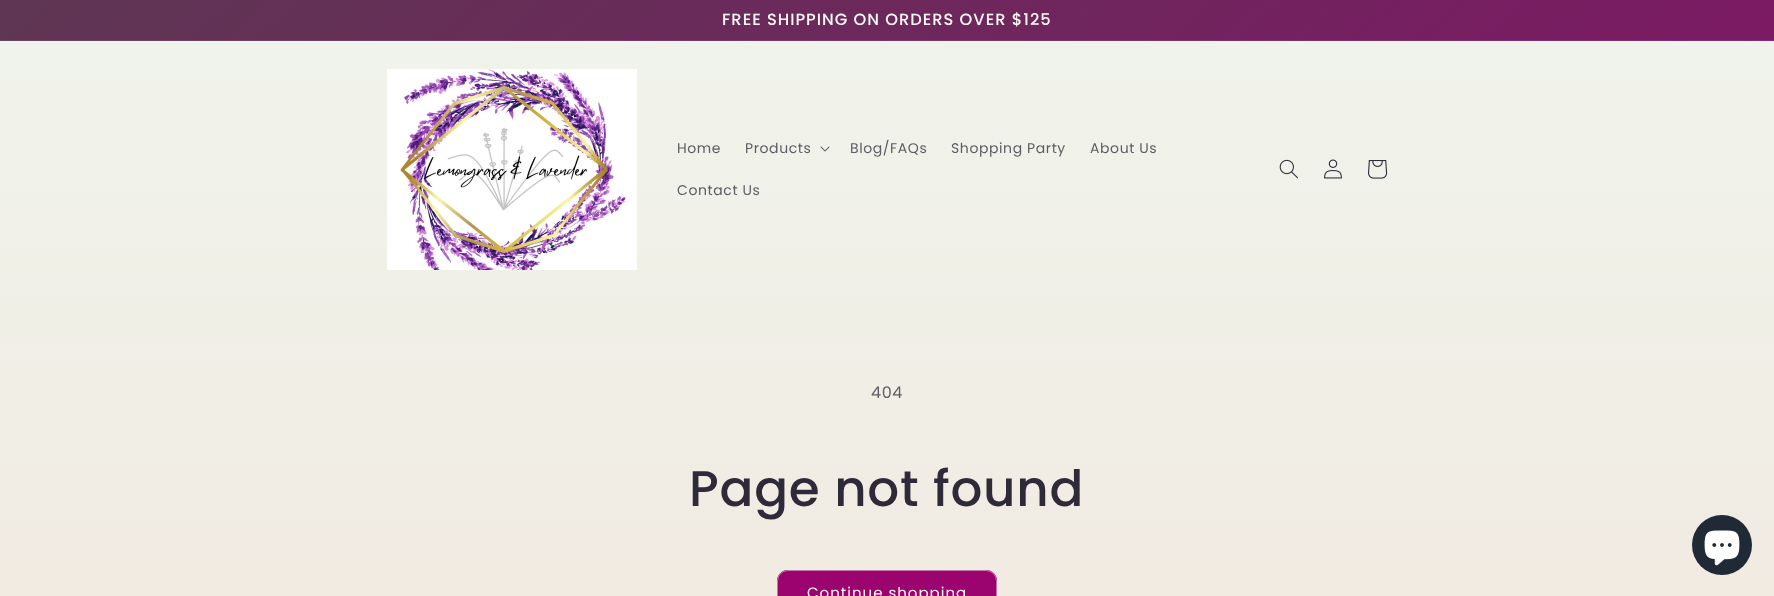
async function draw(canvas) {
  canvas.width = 1774;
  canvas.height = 596;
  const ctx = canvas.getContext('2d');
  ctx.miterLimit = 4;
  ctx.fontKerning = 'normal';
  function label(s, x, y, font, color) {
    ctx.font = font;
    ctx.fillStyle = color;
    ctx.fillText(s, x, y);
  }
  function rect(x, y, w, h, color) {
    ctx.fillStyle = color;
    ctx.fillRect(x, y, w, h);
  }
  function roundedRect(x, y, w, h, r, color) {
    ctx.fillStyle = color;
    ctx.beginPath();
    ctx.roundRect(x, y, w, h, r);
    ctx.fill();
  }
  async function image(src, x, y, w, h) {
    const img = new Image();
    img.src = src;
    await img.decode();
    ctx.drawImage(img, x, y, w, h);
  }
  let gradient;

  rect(0, 0, 1774, 596, '#fff');
  gradient = ctx.createLinearGradient(887, 0, 887, 596);
  gradient.addColorStop(0, '#f0f4ec');
  gradient.addColorStop(1, '#f1ebe2');
  ctx.fillStyle = gradient;
  ctx.fillRect(0, 41, 1774, 555);
  gradient = ctx.createLinearGradient(1400, 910, 374, -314);
  gradient.addColorStop(0, '#86106a');
  gradient.addColorStop(1, '#5e3653');
  ctx.fillStyle = gradient;
  ctx.fillRect(0, 0, 1774, 40);
  gradient = ctx.createLinearGradient(1400, 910, 374, -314);
  gradient.addColorStop(0, '#902375');
  gradient.addColorStop(1, '#6b4660');
  ctx.fillStyle = gradient;
  ctx.fillRect(0, 40, 1774, 1);
  ctx.letterSpacing = '1px';
  label('FREE SHIPPING ON ORDERS OVER $125', 722, 25, '500 16.25px Poppins', '#fdfbf7');
  await image('assets/img1.png', 387, 69, 250, 201);
  ctx.letterSpacing = '0.6px';
  label('Home', 677, 153, '14px Poppins', '#5f5b64');
  label('Products', 745, 153, '14px Poppins', '#5f5b64');
  await image('assets/img2.png', 820, 146, 10, 6);
  label('Blog/FAQs', 850, 153, '14px Poppins', '#5f5b64');
  label('Shopping Party', 951, 153, '14px Poppins', '#5f5b64');
  label('About Us', 1090, 153, '14px Poppins', '#5f5b64');
  label('Contact Us', 677, 195, '14px Poppins', '#5f5b64');
  await image('assets/img3.png', 1279, 159, 19, 20);
  await image('assets/img4.png', 1324, 159, 18, 20);
  await image('assets/img5.png', 1368, 160, 20, 19);
  label('404', 871, 398, '16px Poppins', '#5f5b64');
  ctx.letterSpacing = '0.75px';
  label('Page not found', 689, 506, '500 50px Poppins', '#2e2a39');
  roundedRect(777, 570, 220, 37, 11, '#9b046f');
  ctx.beginPath();
  ctx.roundRect(777.5, 570.5, 219, 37, 10.5);
  ctx.strokeStyle = '#9b046f';
  ctx.stroke();
  ctx.beginPath();
  ctx.roundRect(777.5, 570.5, 219, 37, 10.5);
  ctx.strokeStyle = '#fdfbf773';
  ctx.stroke();
  ctx.letterSpacing = '1px';
  label('Continue shopping', 807, 598, '15px Poppins', '#fdfbf7');
  ctx.fillStyle = '#202a36';
  ctx.beginPath();
  ctx.arc(1722, 545, 30, 0, 2 * Math.PI);
  ctx.fill();
  await image('assets/img6.png', 1704, 530, 36, 36);
}

draw(document.querySelector('canvas'));
